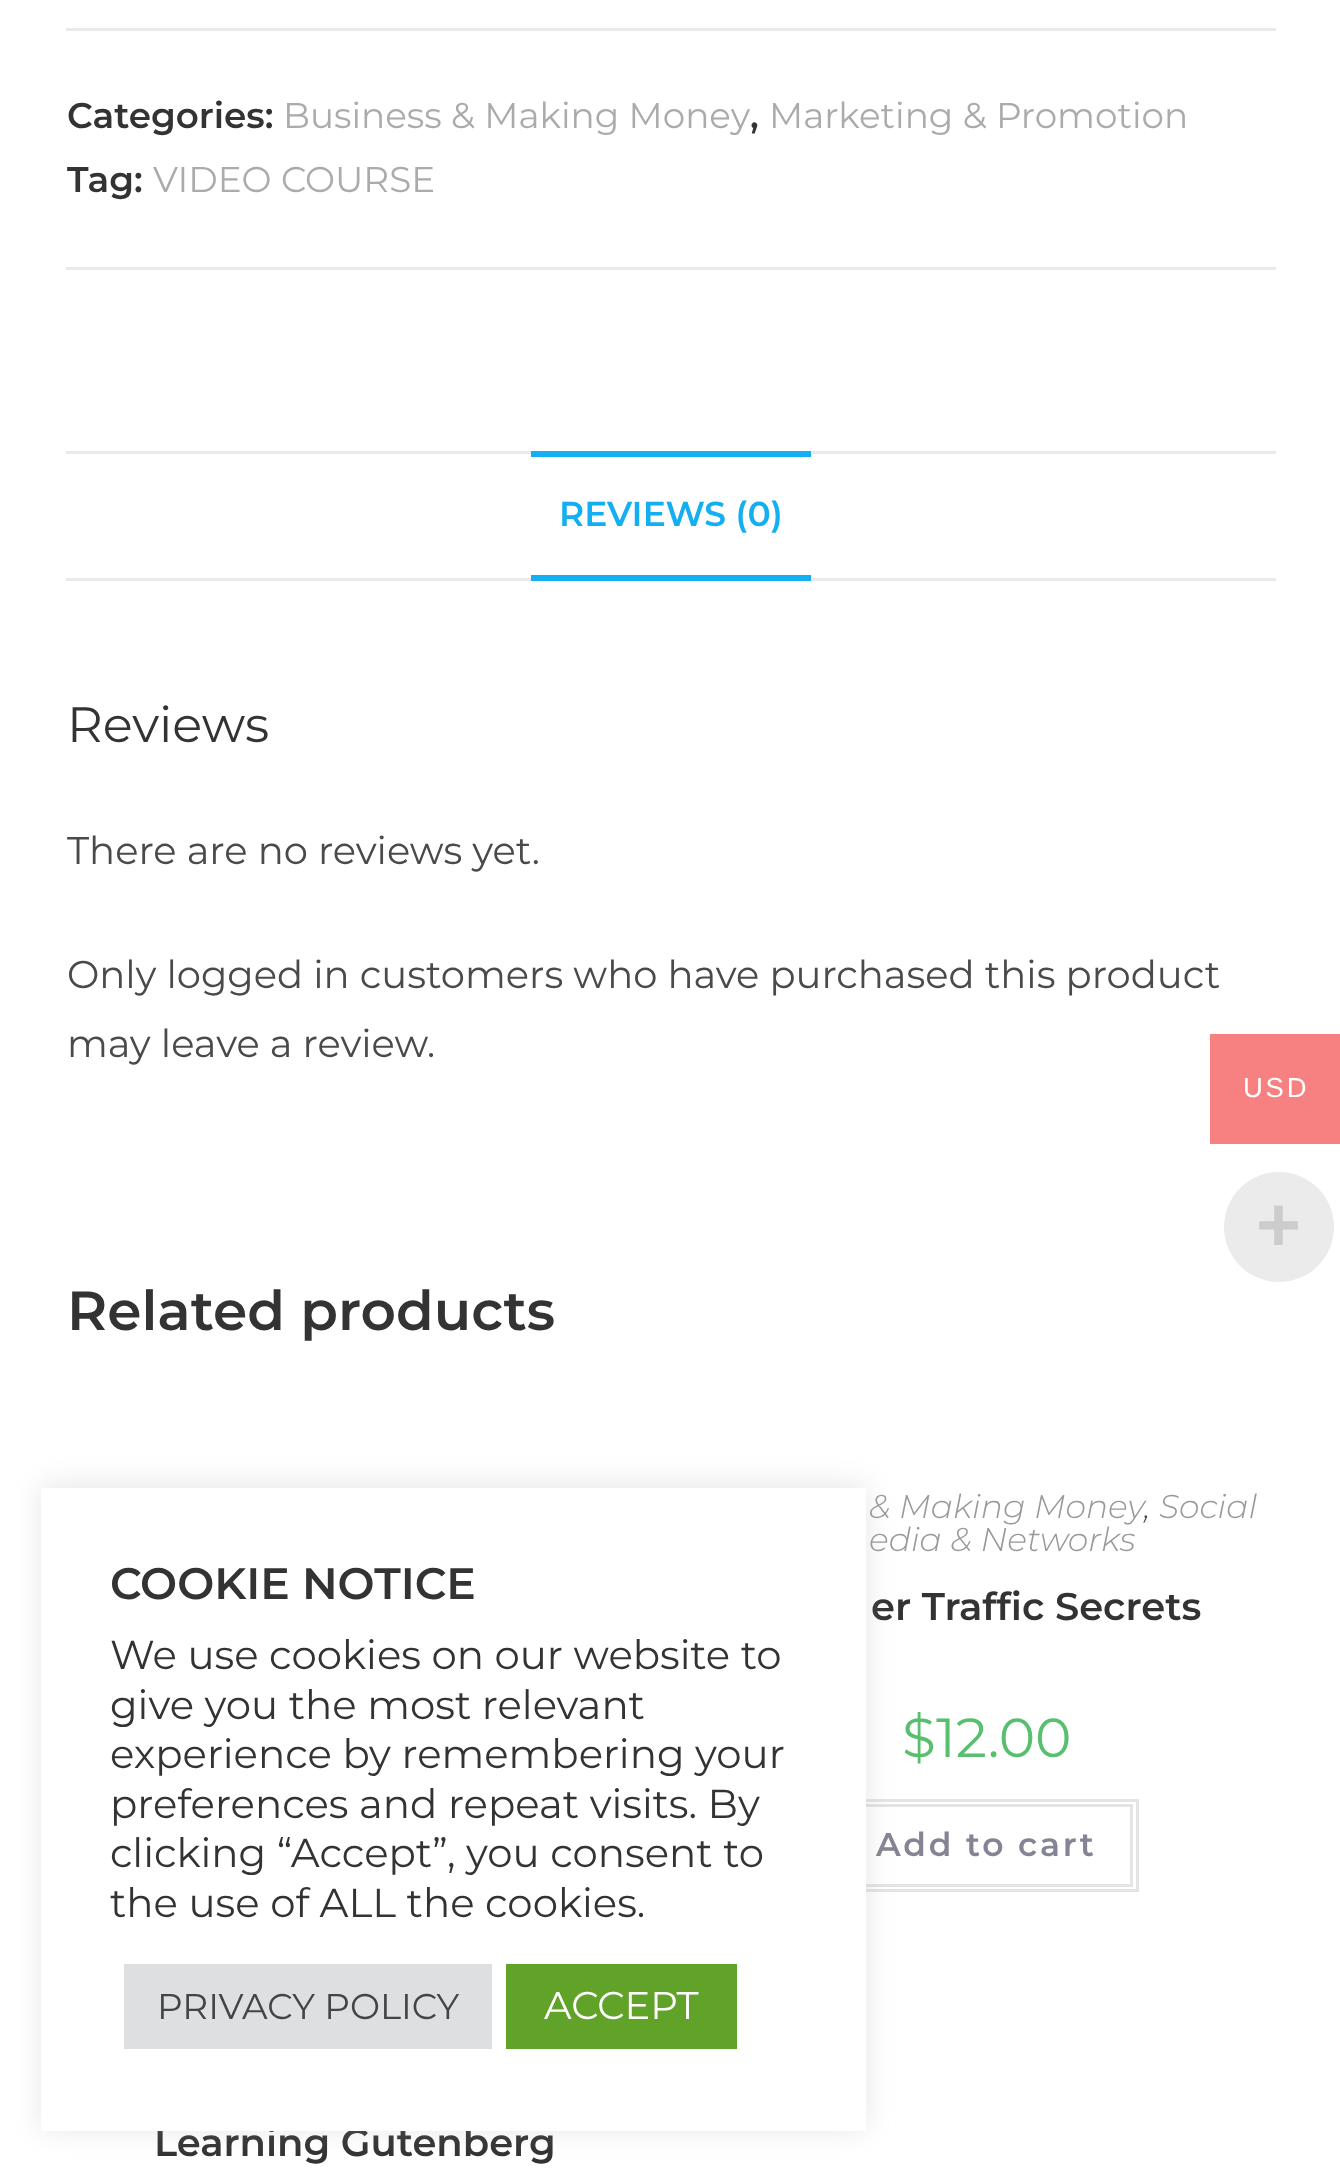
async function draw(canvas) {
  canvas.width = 1340;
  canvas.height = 2172;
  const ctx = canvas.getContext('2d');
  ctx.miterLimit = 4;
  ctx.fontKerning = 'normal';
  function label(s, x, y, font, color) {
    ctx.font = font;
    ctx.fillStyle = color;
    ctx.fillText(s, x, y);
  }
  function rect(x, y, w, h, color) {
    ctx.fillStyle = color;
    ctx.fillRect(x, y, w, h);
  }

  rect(0, 0, 1340, 2172, '#fff');
  rect(66, 28, 1210, 3, '#eaeaea');
  rect(66, 267, 1210, 3, '#eaeaea');
  label('Categories:', 67, 128, '100 35.75px Montserrat', '#333');
  label('Business & Making Money', 283, 128, '100 35.75px "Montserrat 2"', '#ababab');
  label(',', 750, 128, '100 35.75px Montserrat', '#333');
  label('Marketing & Promotion', 769, 128, '100 35.75px "Montserrat 2"', '#ababab');
  label('Tag:', 67, 192, '100 35.75px Montserrat', '#333');
  label('VIDEO COURSE', 153, 192, '100 35.75px "Montserrat 2"', '#ababab');
  rect(66, 451, 1210, 3, '#eaeaea');
  rect(66, 578, 1210, 3, '#eaeaea');
  rect(531, 451, 280, 6, '#13aff0');
  rect(531, 575, 280, 6, '#13aff0');
  label('REVIEWS (0)', 559, 526, '100 34.5px Montserrat', '#13aff0');
  label('Reviews', 67, 742, '100 49.5px "Montserrat 2"', '#333');
  label('There are no reviews yet.', 67, 864, '100 38.5px "Montserrat 2"', '#4a4a4a');
  label('Only logged in customers who have purchased this product', 67, 988, '100 38.5px "Montserrat 2"', '#4a4a4a');
  label('may leave a review.', 67, 1057, '100 38.5px "Montserrat 2"', '#4a4a4a');
  label('Related products', 67, 1330, '100 55px Montserrat', '#333');
  label('& Making Money', 869, 1518, 'italic 100 33px Montserrat', '#999');
  label('Social', 1159, 1518, 'italic 100 33px Montserrat', '#999');
  label(',', 1144, 1518, 'italic 100 33px Montserrat', '#4a4a4a');
  label('edia & Networks', 869, 1551, 'italic 100 33px Montserrat', '#999');
  label('er Traffic Secrets', 871, 1620, '100 38.5px Montserrat', '#333');
  label('$', 902, 1757, '100 55px "Montserrat 2"', '#57bf6d');
  label('12.00', 936, 1757, '100 55px "Montserrat 2"', '#57bf6d');
  ctx.strokeStyle = '#e4e4e4';
  ctx.lineWidth = 3;
  ctx.strokeRect(837.5, 1800.5, 300, 90);
  ctx.strokeRect(843.5, 1805.5, 288, 80);
  ctx.letterSpacing = '2.75px';
  label('Add to cart', 876, 1856, '100 33px Montserrat', '#848494');
  ctx.letterSpacing = '0px';
  label('Learning Gutenberg', 154, 2156, '100 38.5px Montserrat', '#333');
  rect(1210, 1034, 130, 110, '#f78080');
  ctx.letterSpacing = '2.75px';
  label('USD', 1243, 1097, '27.5px Liberation Sans', '#fff');
  ctx.fillStyle = '#ebebeb';
  ctx.beginPath();
  ctx.arc(1279, 1227, 55, 0, 2 * Math.PI);
  ctx.fill();
  ctx.letterSpacing = '0px';
  label('+', 1256, 1251, 'bold 77px Liberation Sans', '#ccc');
  ctx.fillStyle = '#acabab4d';
  ctx.filter = 'blur(14px)';
  ctx.beginPath();
  ctx.rect(41, 1485, 825, 644);
  ctx.fill();
  ctx.filter = 'none';
  rect(41, 1488, 825, 643, '#fff');
  label('COOKIE NOTICE', 110, 1599, '100 44px Montserrat', '#333');
  label('We use cookies on our website to', 110, 1669, '100 40.3px "Montserrat 2"', '#333');
  label('give you the most relevant', 110, 1719, '100 40.3px "Montserrat 2"', '#333');
  label('experience by remembering your', 110, 1768, '100 40.3px "Montserrat 2"', '#333');
  label('preferences and repeat visits. By', 110, 1818, '100 40.3px "Montserrat 2"', '#333');
  label('clicking “Accept”, you consent to', 110, 1867, '100 40.3px "Montserrat 2"', '#333');
  label('the use of ALL the cookies.', 110, 1917, '100 40.3px "Montserrat 2"', '#333');
  rect(124, 1964, 368, 85, '#dedfe0');
  label('PRIVACY POLICY', 157, 2019, '100 35.75px "Montserrat 2"', '#444');
  rect(506, 1964, 231, 85, '#61a229');
  label('ACCEPT', 544, 2019, '100 38.5px "Montserrat 2"', '#fff');
}

draw(document.querySelector('canvas'));
